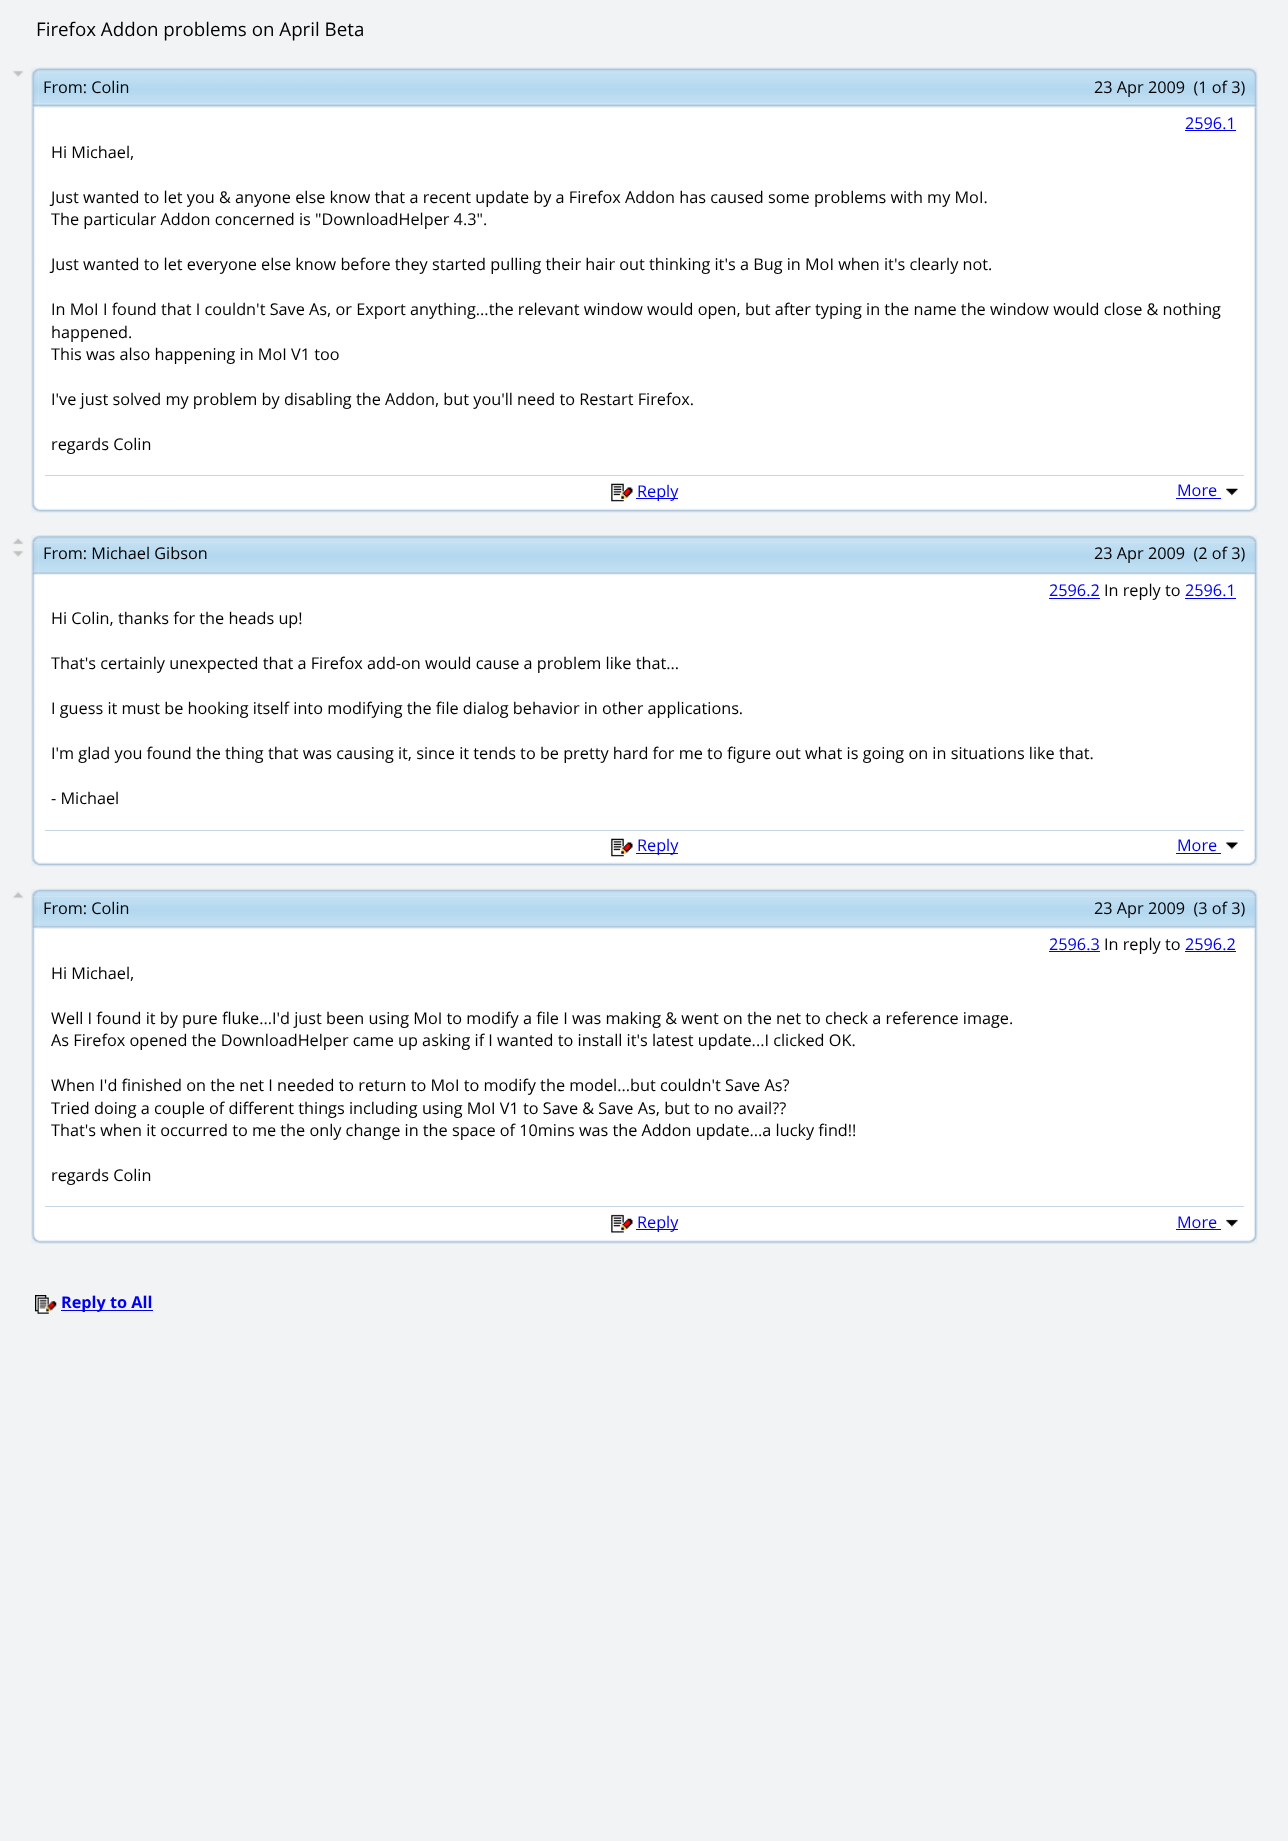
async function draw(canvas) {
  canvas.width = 1288;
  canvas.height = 1841;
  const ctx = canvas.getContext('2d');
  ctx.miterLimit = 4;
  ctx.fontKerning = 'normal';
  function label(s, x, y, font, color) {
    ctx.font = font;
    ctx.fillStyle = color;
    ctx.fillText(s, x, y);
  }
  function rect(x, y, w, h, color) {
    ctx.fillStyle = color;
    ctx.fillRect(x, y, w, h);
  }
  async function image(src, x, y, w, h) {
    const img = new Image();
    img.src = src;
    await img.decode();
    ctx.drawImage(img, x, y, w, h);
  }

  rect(0, 0, 1288, 1841, '#f1f3f5');
  label('Firefox Addon problems on April Beta', 36, 36, '18.75px Open Sans', '#000');
  await image('assets/img1.png', 12, 70, 12, 7);
  await image('assets/img2.png', 31, 67, 8, 8);
  await image('assets/img3.png', 38, 67, 1212, 8);
  await image('assets/img4.png', 1250, 67, 8, 8);
  await image('assets/img6.png', 38, 75, 1212, 29);
  await image('assets/img8.png', 31, 103, 8, 5);
  await image('assets/img5.png', 31, 75, 8, 29);
  label('From: Colin', 43, 93, '16.25px Open Sans', '#000');
  label('23 Apr 2009  (1 of 3)', 1094, 93, '16.25px Open Sans', '#000');
  await image('assets/img10.png', 1250, 103, 8, 5);
  await image('assets/img7.png', 1250, 75, 8, 29);
  await image('assets/img9.png', 38, 104, 1212, 4);
  await image('assets/img11.png', 31, 107, 8, 398);
  rect(39, 108, 1211, 397, '#fff');
  label('2596.1', 1185, 129, '16.25px Open Sans', '#00e');
  rect(1185, 130, 51, 1, '#00e');
  label('Hi Michael,', 51, 158, '16.25px Open Sans', '#000');
  label('Just wanted to let you & anyone else know that a recent update by a Firefox Addon has caused some problems with my MoI.', 51, 203, '16.25px Open Sans', '#000');
  label('The particular Addon concerned is "DownloadHelper 4.3".', 51, 225, '16.25px Open Sans', '#000');
  label('Just wanted to let everyone else know before they started pulling their hair out thinking it\'s a Bug in MoI when it\'s clearly not.', 51, 270, '16.25px Open Sans', '#000');
  label('In MoI I found that I couldn\'t Save As, or Export anything...the relevant window would open, but after typing in the name the window would close & nothing', 51, 315, '16.25px Open Sans', '#000');
  label('happened.', 51, 338, '16.25px Open Sans', '#000');
  label('This was also happening in MoI V1 too', 51, 360, '16.25px Open Sans', '#000');
  label('I\'ve just solved my problem by disabling the Addon, but you\'ll need to Restart Firefox.', 51, 405, '16.25px Open Sans', '#000');
  label('regards Colin', 51, 450, '16.25px Open Sans', '#000');
  rect(45, 475, 1199, 1, '#c8d7e6');
  await image('assets/img12.png', 611, 483, 22, 19);
  rect(636, 498, 42, 1, '#00e');
  label('Reply', 637, 497, '16.25px Open Sans', '#00e');
  label('More', 1177, 496, '16.25px Open Sans', '#00e');
  rect(1176, 498, 45, 1, '#00e');
  await image('assets/img13.png', 1226, 488, 12, 8);
  await image('assets/img14.png', 1250, 107, 8, 398);
  await image('assets/img15.png', 31, 505, 8, 8);
  await image('assets/img16.png', 38, 505, 1212, 8);
  await image('assets/img17.png', 1250, 505, 8, 8);
  await image('assets/img18.png', 12, 538, 12, 7);
  await image('assets/img1.png', 12, 550, 12, 7);
  await image('assets/img19.png', 31, 535, 8, 8);
  await image('assets/img20.png', 38, 535, 1212, 8);
  await image('assets/img21.png', 1250, 535, 8, 8);
  await image('assets/img23.png', 38, 542, 1212, 30);
  await image('assets/img25.png', 31, 571, 8, 4);
  await image('assets/img22.png', 31, 542, 8, 30);
  label('From: Michael Gibson', 43, 559, '16.25px Open Sans', '#000');
  label('23 Apr 2009  (2 of 3)', 1094, 559, '16.25px Open Sans', '#000');
  await image('assets/img27.png', 1250, 571, 8, 4);
  await image('assets/img24.png', 1250, 542, 8, 30);
  await image('assets/img26.png', 39, 571, 1211, 4);
  await image('assets/img28.png', 31, 575, 8, 284);
  rect(39, 575, 1211, 284, '#fff');
  label('2596.2', 1049, 596, '16.25px Open Sans', '#00e');
  rect(1049, 598, 51, 1, '#00e');
  label('In reply to', 1104, 596, '16.25px Open Sans', '#000');
  label('2596.1', 1185, 596, '16.25px Open Sans', '#00e');
  rect(1185, 598, 51, 1, '#00e');
  label('Hi Colin, thanks for the heads up!', 51, 624, '16.25px Open Sans', '#000');
  label('That\'s certainly unexpected that a Firefox add-on would cause a problem like that...', 51, 669, '16.25px Open Sans', '#000');
  label('I guess it must be hooking itself into modifying the file dialog behavior in other applications.', 51, 714, '16.25px Open Sans', '#000');
  label('I\'m glad you found the thing that was causing it, since it tends to be pretty hard for me to figure out what is going on in situations like that.', 51, 759, '16.25px Open Sans', '#000');
  label('- Michael', 51, 804, '16.25px Open Sans', '#000');
  rect(45, 830, 1199, 1, '#c8d7e6');
  await image('assets/img12.png', 611, 838, 22, 19);
  rect(636, 853, 42, 1, '#00e');
  label('Reply', 637, 851, '16.25px Open Sans', '#00e');
  label('More', 1177, 851, '16.25px Open Sans', '#00e');
  rect(1176, 853, 45, 1, '#00e');
  await image('assets/img29.png', 1226, 842, 12, 7);
  await image('assets/img30.png', 1250, 575, 8, 284);
  await image('assets/img31.png', 31, 858, 8, 8);
  await image('assets/img32.png', 38, 859, 1212, 8);
  await image('assets/img33.png', 1250, 858, 8, 8);
  await image('assets/img34.png', 12, 891, 12, 8);
  await image('assets/img35.png', 31, 889, 8, 8);
  await image('assets/img36.png', 38, 888, 1212, 9);
  await image('assets/img37.png', 1250, 889, 8, 8);
  await image('assets/img39.png', 38, 896, 1212, 29);
  await image('assets/img38.png', 31, 896, 8, 29);
  label('From: Colin', 43, 914, '16.25px Open Sans', '#000');
  label('23 Apr 2009  (3 of 3)', 1094, 914, '16.25px Open Sans', '#000');
  await image('assets/img40.png', 1250, 896, 8, 29);
  await image('assets/img41.png', 31, 925, 8, 4);
  await image('assets/img42.png', 39, 925, 1211, 4);
  await image('assets/img43.png', 1250, 925, 8, 4);
  await image('assets/img44.png', 31, 928, 8, 309);
  rect(39, 929, 1211, 307, '#fff');
  label('2596.3', 1049, 950, '16.25px Open Sans', '#00e');
  rect(1049, 951, 51, 1, '#00e');
  label('In reply to', 1104, 950, '16.25px Open Sans', '#000');
  label('2596.2', 1185, 950, '16.25px Open Sans', '#00e');
  rect(1185, 951, 51, 1, '#00e');
  label('Hi Michael,', 51, 979, '16.25px Open Sans', '#000');
  label('Well I found it by pure fluke...I\'d just been using MoI to modify a file I was making & went on the net to check a reference image.', 51, 1024, '16.25px Open Sans', '#000');
  label('As Firefox opened the DownloadHelper came up asking if I wanted to install it\'s latest update...I clicked OK.', 51, 1046, '16.25px Open Sans', '#000');
  label('When I\'d finished on the net I needed to return to MoI to modify the model...but couldn\'t Save As?', 51, 1091, '16.25px Open Sans', '#000');
  label('Tried doing a couple of different things including using MoI V1 to Save & Save As, but to no avail??', 51, 1114, '16.25px Open Sans', '#000');
  label('That\'s when it occurred to me the only change in the space of 10mins was the Addon update...a lucky find!!', 51, 1136, '16.25px Open Sans', '#000');
  label('regards Colin', 51, 1181, '16.25px Open Sans', '#000');
  rect(45, 1206, 1199, 1, '#c8d7e6');
  await image('assets/img45.png', 611, 1214, 22, 19);
  rect(636, 1229, 42, 1, '#00e');
  label('Reply', 637, 1228, '16.25px Open Sans', '#00e');
  label('More', 1177, 1228, '16.25px Open Sans', '#00e');
  rect(1176, 1229, 45, 1, '#00e');
  await image('assets/img46.png', 1226, 1219, 12, 8);
  await image('assets/img47.png', 1250, 928, 8, 309);
  await image('assets/img48.png', 31, 1236, 8, 8);
  await image('assets/img49.png', 38, 1236, 1212, 8);
  await image('assets/img50.png', 1250, 1236, 8, 8);
  await image('assets/img51.png', 35, 1295, 22, 19);
  rect(61, 1310, 92, 1, '#00e');
  label('Reply to All', 61, 1308, 'bold 16.25px Open Sans', '#00e');
}

draw(document.querySelector('canvas'));
